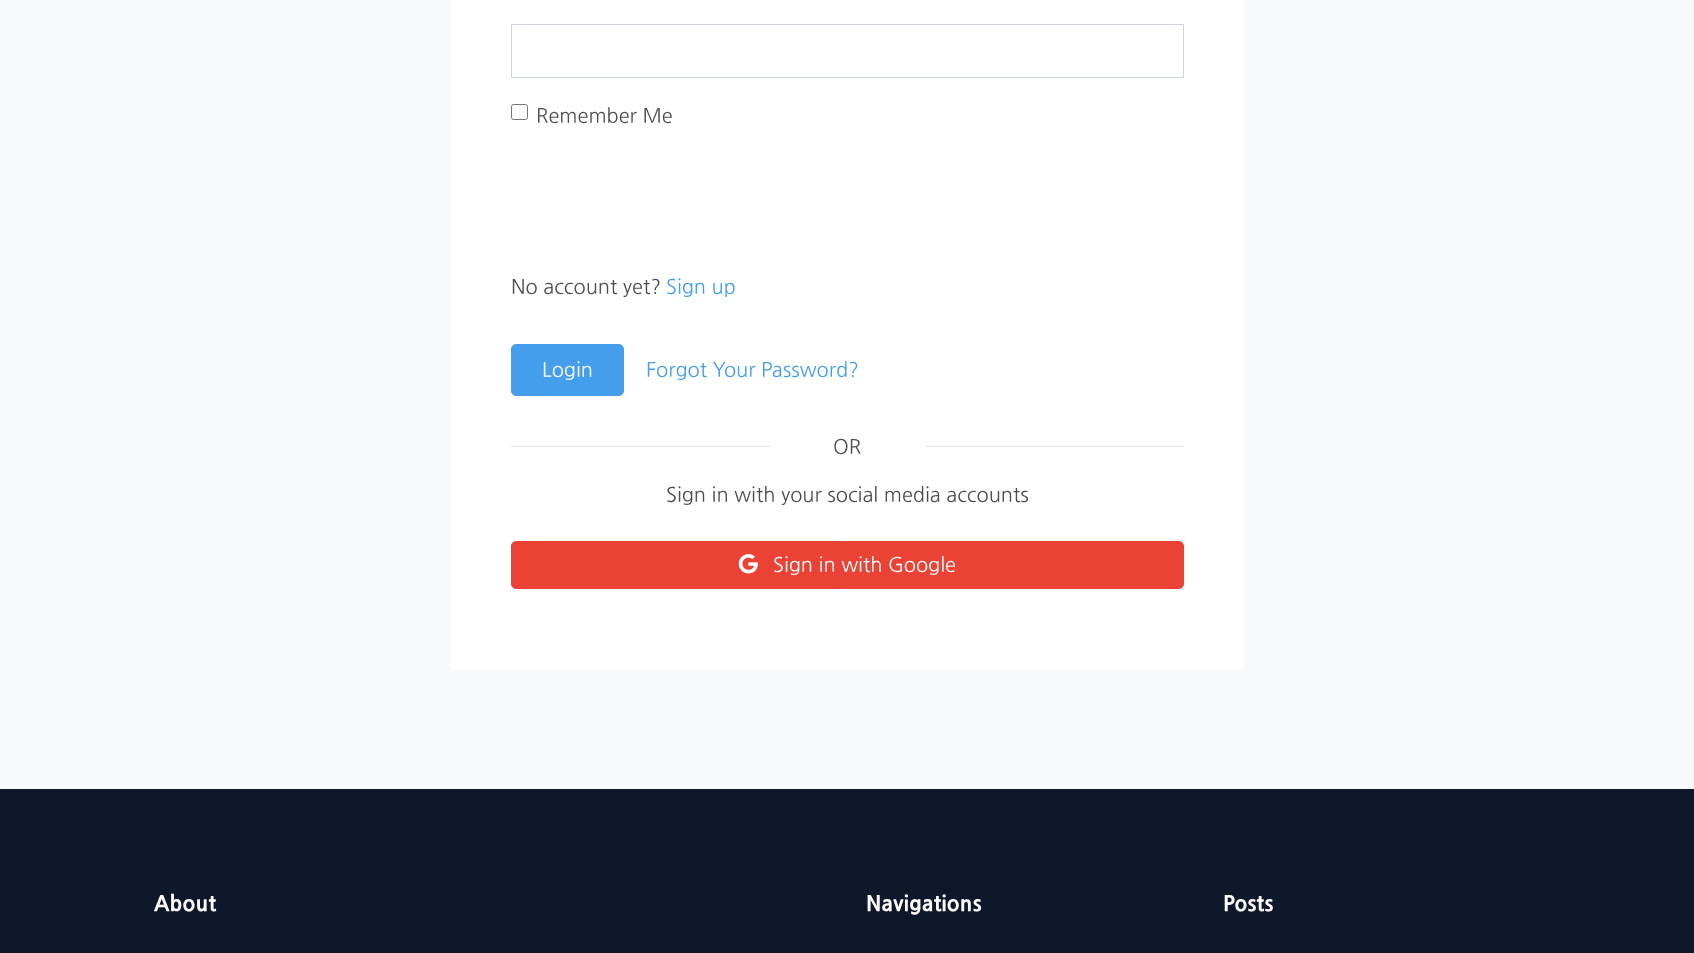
async function draw(canvas) {
  canvas.width = 1694;
  canvas.height = 953;
  const ctx = canvas.getContext('2d');
  ctx.miterLimit = 4;
  ctx.fontKerning = 'normal';
  function label(s, x, y, font, color) {
    ctx.font = font;
    ctx.fillStyle = color;
    ctx.fillText(s, x, y);
  }
  function rect(x, y, w, h, color) {
    ctx.fillStyle = color;
    ctx.fillRect(x, y, w, h);
  }
  async function image(src, x, y, w, h) {
    const img = new Image();
    img.src = src;
    await img.decode();
    ctx.drawImage(img, x, y, w, h);
  }

  rect(0, 0, 1694, 953, '#f8f9fa');
  rect(451, 0, 793, 669, '#fff');
  ctx.strokeStyle = '#ced4da';
  ctx.strokeRect(511.5, 24.5, 672, 53);
  ctx.beginPath();
  ctx.roundRect(511.5, 104.5, 16, 15, 2);
  ctx.strokeStyle = '#767676';
  ctx.stroke();
  label('Remember Me', 536, 122, '20px NanumGothic', '#4d4d4d');
  label('No account yet?', 511, 293, '20px NanumGothic', '#4d4d4d');
  label('Sign up', 666, 293, '20px NanumGothic', '#449eec');
  ctx.beginPath();
  ctx.roundRect(511.5, 344.5, 112, 51, 4.5);
  ctx.fill();
  ctx.strokeStyle = '#449eec';
  ctx.stroke();
  label('Login', 542, 376, '20px NanumGothic', '#fff');
  label('Forgot Your Password?', 646, 376, '20px NanumGothic', '#449eec');
  rect(511, 446, 259, 1, '#e6e6e6');
  label('OR', 833, 453, '20px NanumGothic', '#4d4d4d');
  rect(925, 446, 259, 1, '#e6e6e6');
  label('Sign in with your social media accounts', 666, 501, '20px NanumGothic', '#4d4d4d');
  ctx.fillStyle = '#ea4335';
  ctx.beginPath();
  ctx.roundRect(511.5, 541.5, 672, 47, 4.5);
  ctx.fill();
  ctx.strokeStyle = '#ea4335';
  ctx.stroke();
  await image('assets/img1.png', 738, 554, 20, 20);
  label('Sign in with Google', 773, 571, '20px NanumGothic', '#fff');
  rect(0, 789, 1694, 164, '#0f172a');
  ctx.letterSpacing = '0.25px';
  label('About', 154, 910, '800 21px NanumGothic', '#fff');
  label('Navigations', 866, 910, '800 21px NanumGothic', '#fff');
  label('Posts', 1223, 910, '800 21px NanumGothic', '#fff');
}

draw(document.querySelector('canvas'));
